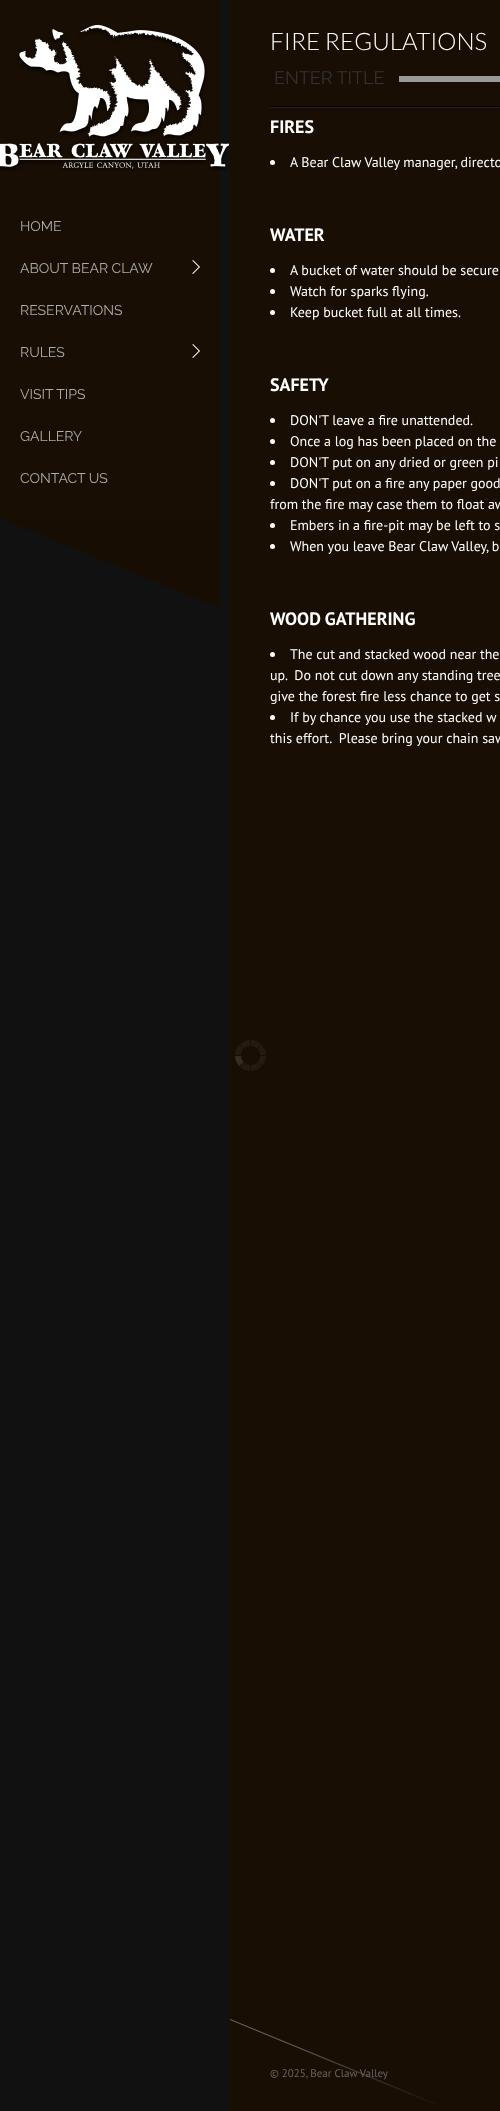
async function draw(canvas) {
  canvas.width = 500;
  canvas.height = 2111;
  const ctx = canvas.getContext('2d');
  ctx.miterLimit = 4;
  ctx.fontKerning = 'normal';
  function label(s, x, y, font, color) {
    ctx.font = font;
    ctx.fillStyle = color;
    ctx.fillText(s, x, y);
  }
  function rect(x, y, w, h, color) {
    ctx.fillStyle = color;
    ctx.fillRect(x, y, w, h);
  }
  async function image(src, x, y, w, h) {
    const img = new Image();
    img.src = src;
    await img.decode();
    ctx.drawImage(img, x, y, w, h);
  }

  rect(0, 0, 500, 2111, '#111');
  rect(230, 0, 270, 2111, '#180e03');
  rect(0, 0, 220, 518, '#180e03');
  await image('assets/img1.png', 0, 25, 229, 146);
  label('HOME', 20, 231, '100 14px Raleway', '#acacac');
  label('ABOUT BEAR CLAW', 20, 273, '100 14px Raleway', '#acacac');
  await image('assets/img2.png', 192, 260, 8, 14);
  label('RESERVATIONS', 20, 315, '100 14px Raleway', '#acacac');
  label('RULES', 20, 357, '100 14px Raleway', '#acacac');
  await image('assets/img2.png', 192, 344, 8, 14);
  label('VISIT TIPS', 20, 399, '100 14px Raleway', '#acacac');
  label('GALLERY', 20, 441, '100 14px Raleway', '#acacac');
  label('CONTACT US', 20, 483, '100 14px Raleway', '#acacac');
  await image('assets/img3.png', 1, 518, 219, 90);
  label('FIRE REGULATIONS', 270, 50, '300 24px Lato', '#fff');
  rect(270, 107, 230, 1, '#242322');
  rect(270, 106, 230, 1, '#000');
  label('ENTER TITLE', 274, 84, '100 18px Raleway', '#333');
  rect(399, 76, 101, 6, '#999');
  label('FIRES', 270, 133, 'bold 18px PT Sans', '#fff');
  ctx.beginPath();
  ctx.arc(272.5, 162.5, 2.5, 0, 2 * Math.PI);
  ctx.fill();
  label('A Bear Claw Valley manager, directo', 290, 167, '14px PT Sans', '#fff');
  label('WATER', 270, 241, 'bold 18px PT Sans', '#fff');
  ctx.beginPath();
  ctx.arc(272.5, 270.5, 2.5, 0, 2 * Math.PI);
  ctx.fill();
  label('A bucket of water should be secure', 290, 275, '14px PT Sans', '#fff');
  ctx.beginPath();
  ctx.arc(272.5, 291.5, 2.5, 0, 2 * Math.PI);
  ctx.fill();
  label('Watch for sparks flying.', 290, 296, '14px PT Sans', '#fff');
  ctx.beginPath();
  ctx.arc(272.5, 312.5, 2.5, 0, 2 * Math.PI);
  ctx.fill();
  label('Keep bucket full at all times.', 290, 317, '14px PT Sans', '#fff');
  label('SAFETY', 270, 391, 'bold 18px PT Sans', '#fff');
  ctx.beginPath();
  ctx.arc(272.5, 420.5, 2.5, 0, 2 * Math.PI);
  ctx.fill();
  label('DON\'T leave a fire unattended.', 290, 425, '14px PT Sans', '#fff');
  ctx.beginPath();
  ctx.arc(272.5, 441.5, 2.5, 0, 2 * Math.PI);
  ctx.fill();
  label('Once a log has been placed on the', 290, 446, '14px PT Sans', '#fff');
  ctx.beginPath();
  ctx.arc(272.5, 462.5, 2.5, 0, 2 * Math.PI);
  ctx.fill();
  label('DON\'T put on any dried or green pi', 290, 467, '14px PT Sans', '#fff');
  ctx.beginPath();
  ctx.arc(272.5, 483.5, 2.5, 0, 2 * Math.PI);
  ctx.fill();
  label('DON\'T put on a fire any paper good', 290, 488, '14px PT Sans', '#fff');
  label('from the fire may case them to float aw', 270, 509, '14px PT Sans', '#fff');
  ctx.beginPath();
  ctx.arc(272.5, 525.5, 2.5, 0, 2 * Math.PI);
  ctx.fill();
  label('Embers in a fire-pit may be left to s', 290, 530, '14px PT Sans', '#fff');
  ctx.beginPath();
  ctx.arc(272.5, 546.5, 2.5, 0, 2 * Math.PI);
  ctx.fill();
  label('When you leave Bear Claw Valley, b', 290, 551, '14px PT Sans', '#fff');
  label('WOOD GATHERING', 270, 625, 'bold 18px PT Sans', '#fff');
  ctx.beginPath();
  ctx.arc(272.5, 654.5, 2.5, 0, 2 * Math.PI);
  ctx.fill();
  label('The cut and stacked wood near the', 290, 659, '14px PT Sans', '#fff');
  label('up.  Do not cut down any standing tree', 270, 680, '14px PT Sans', '#fff');
  label('give the forest fire less chance to get s', 270, 701, '14px PT Sans', '#fff');
  ctx.beginPath();
  ctx.arc(272.5, 717.5, 2.5, 0, 2 * Math.PI);
  ctx.fill();
  label('If by chance you use the stacked w', 290, 722, '14px PT Sans', '#fff');
  label('this effort.  Please bring your chain saw', 270, 743, '14px PT Sans', '#fff');
  await image('assets/img4.png', 230, 2019, 208, 86);
  label('© 2025, Bear Claw Valley', 270, 2077, '11px PT Sans', '#666');
  await image('assets/img5.png', 236, 1040, 30, 31);
  await image('assets/img6.png', 235, 1045, 9, 21);
}

draw(document.querySelector('canvas'));
